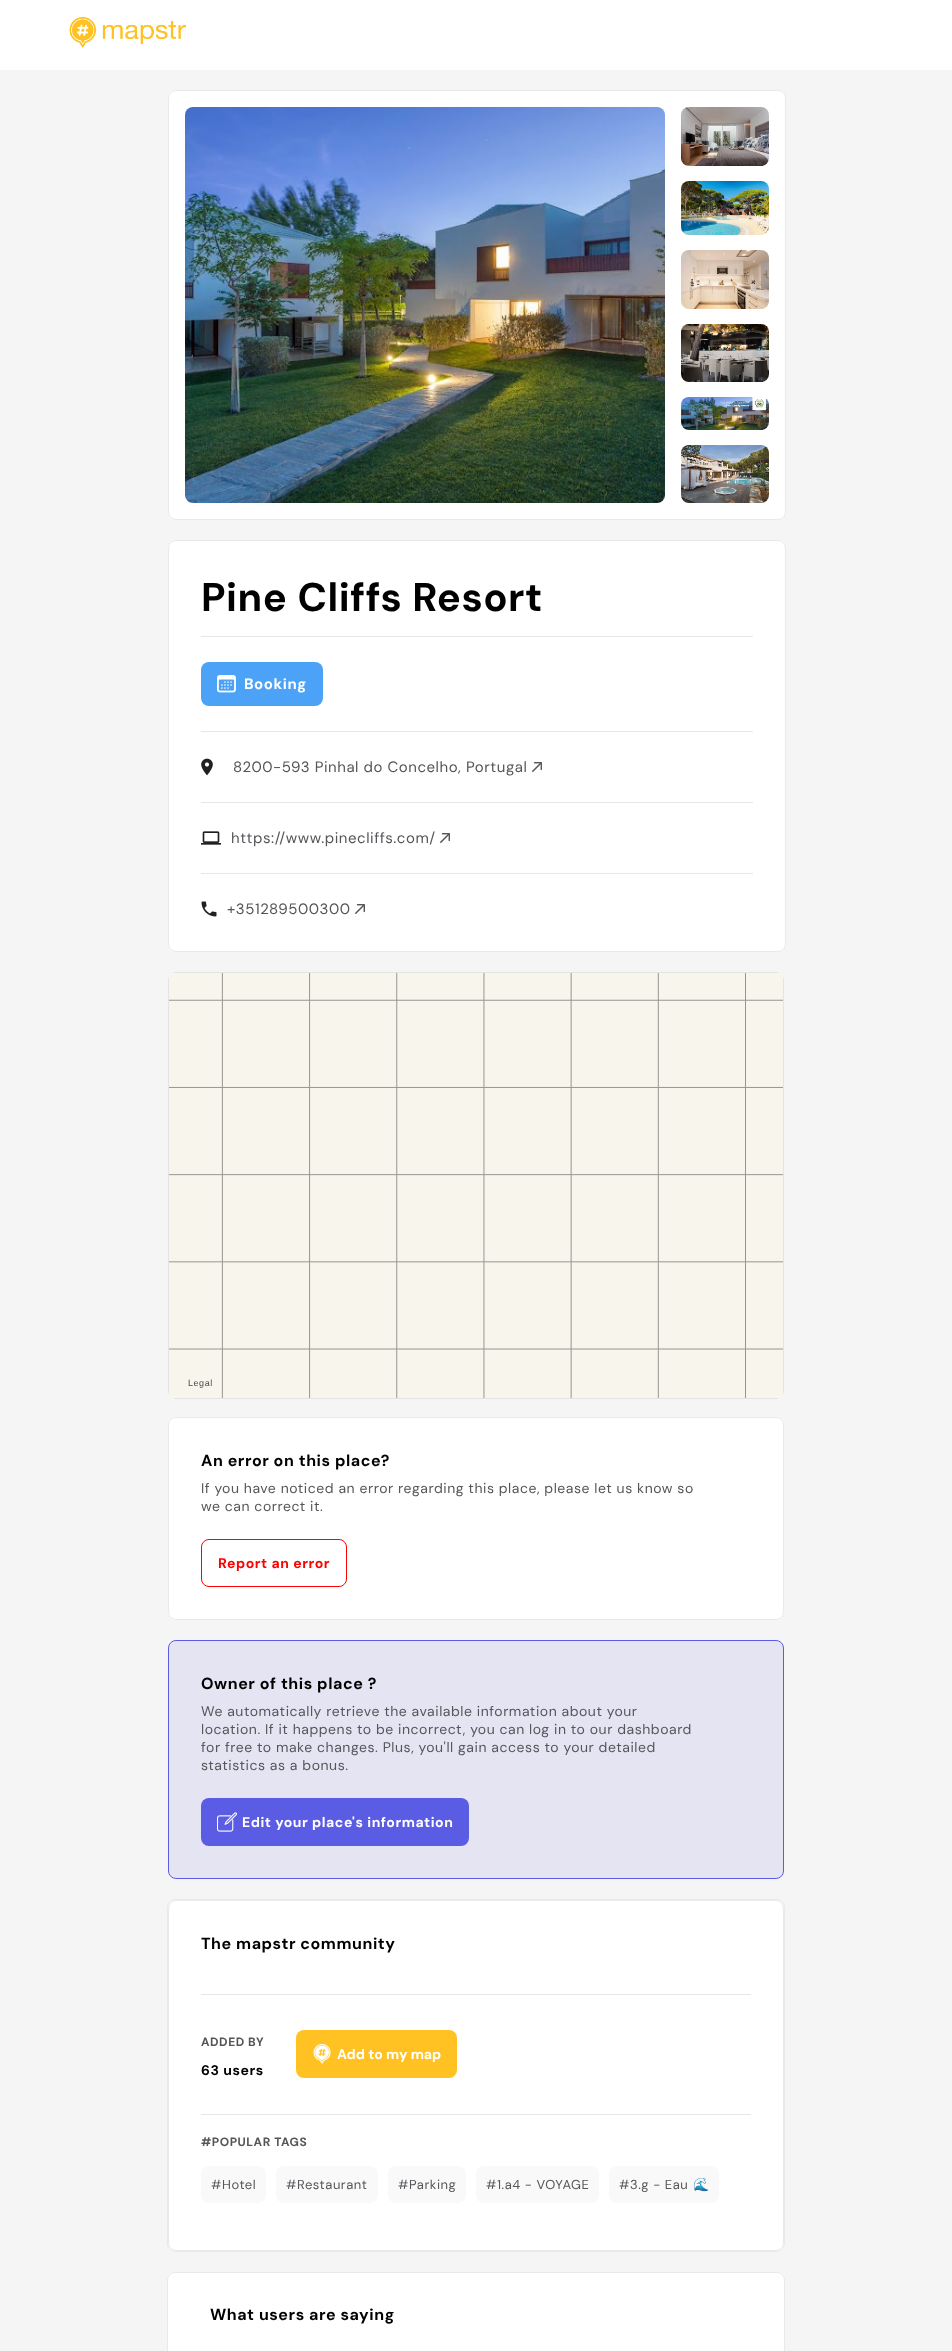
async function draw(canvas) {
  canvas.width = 952;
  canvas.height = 2351;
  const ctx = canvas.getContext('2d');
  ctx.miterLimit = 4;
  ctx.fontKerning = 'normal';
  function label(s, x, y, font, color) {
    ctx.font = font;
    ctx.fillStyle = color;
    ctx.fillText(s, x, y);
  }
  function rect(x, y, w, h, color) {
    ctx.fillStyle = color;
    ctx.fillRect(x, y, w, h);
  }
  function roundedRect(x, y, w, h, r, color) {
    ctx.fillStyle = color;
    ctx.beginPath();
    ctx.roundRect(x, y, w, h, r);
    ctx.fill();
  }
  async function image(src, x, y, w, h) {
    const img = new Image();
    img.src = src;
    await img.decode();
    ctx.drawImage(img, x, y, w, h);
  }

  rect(0, 0, 952, 2351, '#f5f5f5');
  rect(0, 0, 952, 70, '#fff');
  await image('assets/img1.png', 69, 17, 117, 31);
  roundedRect(168, 90, 618, 430, 8, '#fff');
  ctx.beginPath();
  ctx.roundRect(168.5, 90.5, 617, 429, 7.5);
  ctx.strokeStyle = '#d3d3d382';
  ctx.stroke();
  await image('assets/img2.png', 185, 107, 480, 396);
  await image('assets/img3.png', 681, 107, 88, 59);
  await image('assets/img4.png', 681, 181, 88, 54);
  await image('assets/img5.png', 681, 250, 88, 59);
  await image('assets/img6.png', 681, 324, 88, 58);
  await image('assets/img7.png', 681, 397, 88, 33);
  await image('assets/img8.png', 681, 445, 88, 58);
  roundedRect(168, 540, 618, 412, 8, '#fff');
  ctx.beginPath();
  ctx.roundRect(168.5, 540.5, 617, 411, 7.5);
  ctx.stroke();
  ctx.letterSpacing = '0.55px';
  label('Pine Cliffs Resort', 201, 611, 'bold 40px DM Sans', '#000');
  rect(201, 636, 552, 1, '#e7e7e7');
  roundedRect(201, 662, 122, 44, 8, '#4ca2f6');
  await image('assets/img9.png', 217, 675, 19, 18);
  label('Booking', 244, 689, 'bold 15px DM Sans', '#fff');
  rect(201, 731, 552, 1, '#e7e7e7');
  await image('assets/img10.png', 201, 758, 12, 18);
  label('8200-593 Pinhal do Concelho, Portugal', 233, 772, '15px DM Sans', '#56565a');
  await image('assets/img11.png', 532, 762, 10, 10);
  rect(201, 802, 552, 1, '#e7e7e7');
  await image('assets/img12.png', 201, 831, 20, 14);
  label('https://www.pinecliffs.com/', 231, 843, '15px DM Sans', '#56565a');
  await image('assets/img11.png', 440, 833, 10, 10);
  rect(201, 873, 552, 1, '#e7e7e7');
  await image('assets/img13.png', 201, 901, 16, 16);
  label('+351289500300', 227, 914, '15px DM Sans', '#56565a');
  await image('assets/img11.png', 355, 904, 10, 10);
  ctx.beginPath();
  ctx.roundRect(168.5, 972.5, 615, 426, 7.5);
  ctx.strokeStyle = '#e4e4e4';
  ctx.stroke();
  await image('assets/img14.png', 169, 973, 614, 425);
  label('Legal', 188, 1386, '9px Liberation Sans', '#4a4a47');
  roundedRect(168, 1417, 616, 203, 8, '#fff');
  ctx.beginPath();
  ctx.roundRect(168.5, 1417.5, 615, 202, 7.5);
  ctx.strokeStyle = '#d3d3d382';
  ctx.stroke();
  label('An error on this place?', 201, 1466, 'bold 16px DM Sans', '#000');
  label('If you have noticed an error regarding this place, please let us know so', 201, 1493, '14px DM Sans', '#56565a');
  label('we can correct it.', 201, 1511, '14px DM Sans', '#56565a');
  ctx.beginPath();
  ctx.roundRect(201.5, 1539.5, 145, 47, 7.5);
  ctx.strokeStyle = '#f00';
  ctx.stroke();
  label('Report an error', 218, 1568, 'bold 14px DM Sans', '#f00');
  ctx.fillStyle = '#e4e4f3';
  ctx.beginPath();
  ctx.roundRect(168.5, 1640.5, 615, 238, 7.5);
  ctx.fill();
  ctx.strokeStyle = '#5b5ce4';
  ctx.stroke();
  label('Owner of this place ?', 201, 1689, 'bold 16px DM Sans', '#000');
  label('We automatically retrieve the available information about your', 201, 1716, '14px DM Sans', '#56565a');
  label('location. If it happens to be incorrect, you can log in to our dashboard', 201, 1734, '14px DM Sans', '#56565a');
  label('for free to make changes. Plus, you\'ll gain access to your detailed', 201, 1752, '14px DM Sans', '#56565a');
  label('statistics as a bonus.', 201, 1770, '14px DM Sans', '#56565a');
  roundedRect(201, 1798, 268, 48, 8, '#5b5ce4');
  await image('assets/img15.png', 217, 1812, 20, 20);
  label('Edit your place\'s information', 242, 1827, 'bold 14px DM Sans', '#fff');
  roundedRect(167, 1899, 618, 353, 8, '#fff');
  ctx.beginPath();
  ctx.roundRect(167.5, 1899.5, 617, 352, 7.5);
  ctx.strokeStyle = '#d3d3d382';
  ctx.stroke();
  ctx.beginPath();
  ctx.roundRect(168.5, 1900.5, 615, 350, 7.5);
  ctx.strokeStyle = '#e9e9e9';
  ctx.stroke();
  label('The mapstr community', 201, 1949, 'bold 16px DM Sans', '#000');
  rect(201, 1994, 550, 1, '#e7e7e7');
  label('ADDED BY', 201, 2046, 'bold 12px DM Sans', '#56565a');
  label('63 users', 201, 2075, 'bold 14px DM Sans', '#000');
  roundedRect(296, 2030, 161, 48, 8, '#ffc222');
  await image('assets/img16.png', 313, 2044, 18, 20);
  ctx.letterSpacing = '0px';
  label('Add to my map', 337, 2059, 'bold 14px DM Sans', '#fff');
  rect(201, 2114, 550, 1, '#e7e7e7');
  ctx.letterSpacing = '0.55px';
  label('#POPULAR TAGS', 201, 2146, 'bold 12px DM Sans', '#56565a');
  roundedRect(201, 2166, 65, 37, 8, '#f9f9f9');
  label('#Hotel', 211, 2189, '13px DM Sans', '#56565a');
  roundedRect(276, 2166, 102, 37, 8, '#f9f9f9');
  label('#Restaurant', 286, 2189, '13px DM Sans', '#56565a');
  roundedRect(388, 2166, 78, 37, 8, '#f9f9f9');
  label('#Parking', 398, 2189, '13px DM Sans', '#56565a');
  roundedRect(476, 2166, 123, 37, 8, '#f9f9f9');
  label('#1.a4 - VOYAGE', 486, 2189, '13px DM Sans', '#56565a');
  roundedRect(609, 2166, 110, 37, 8, '#f9f9f9');
  label('#3.g - Eau', 619, 2189, '13px DM Sans', '#56565a');
  label('🌊', 693, 2189, '13px Noto Color Emoji', '#56565a');
  roundedRect(167, 2272, 618, 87, 8, '#fff');
  ctx.beginPath();
  ctx.roundRect(167.5, 2272.5, 617, 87, 7.5);
  ctx.strokeStyle = '#d3d3d382';
  ctx.stroke();
  label('What users are saying', 210, 2320, 'bold 16px DM Sans', '#000');
}

draw(document.querySelector('canvas'));
